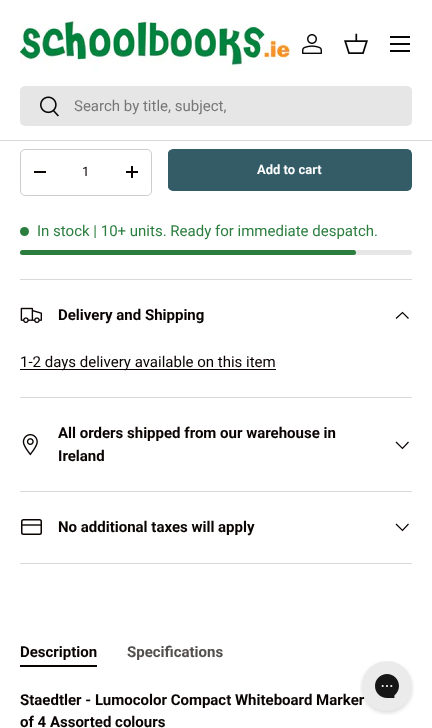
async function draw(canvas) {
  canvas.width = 432;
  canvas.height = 728;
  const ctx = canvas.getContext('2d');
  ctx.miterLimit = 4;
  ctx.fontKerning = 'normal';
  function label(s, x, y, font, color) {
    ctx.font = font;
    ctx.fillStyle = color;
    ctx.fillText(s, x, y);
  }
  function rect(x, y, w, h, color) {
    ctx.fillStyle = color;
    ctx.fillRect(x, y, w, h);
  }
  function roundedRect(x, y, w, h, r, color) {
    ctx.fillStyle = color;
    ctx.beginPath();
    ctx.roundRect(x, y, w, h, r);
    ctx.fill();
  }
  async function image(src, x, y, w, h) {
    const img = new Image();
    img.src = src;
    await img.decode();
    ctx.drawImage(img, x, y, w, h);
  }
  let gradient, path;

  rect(0, 0, 432, 728, '#fff');
  rect(0, 140, 432, 1, '#dadada');
  await image('assets/img1.png', 20, 19, 270, 52);
  await image('assets/img2.png', 302, 34, 20, 20);
  await image('assets/img3.png', 344, 33, 24, 21);
  rect(390, 36, 20, 2, '#070707');
  rect(390, 50, 20, 2, '#070707');
  rect(390, 43, 20, 2, '#070707');
  roundedRect(20, 86, 392, 40, 5, '#e6e6e6');
  await image('assets/img4.png', 40, 96, 19, 21);
  label('Search by title, subject,', 74, 111, '15px Roboto', '#777');
  ctx.beginPath();
  ctx.roundRect(20.5, 149.5, 131, 46, 4.5);
  ctx.strokeStyle = '#cecdcc';
  ctx.stroke();
  rect(34, 171, 12, 2, '#090302');
  label('1', 82, 176, '13px Roboto', '#090302');
  rect(126, 171, 12, 2, '#090302');
  rect(131, 166, 2, 12, '#090302');
  ctx.save();
  ctx.beginPath();
  ctx.roundRect(168, 149, 244, 42, 5);
  ctx.clip();
  gradient = ctx.createLinearGradient(-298, 84, 394, 256);
  gradient.addColorStop(0.6, '#587d87');
  gradient.addColorStop(0.6, '#335c67');
  gradient.addColorStop(1, '#335c67');
  ctx.fillStyle = gradient;
  ctx.fillRect(168, 150, 243, 40);
  ctx.restore();
  ctx.beginPath();
  ctx.roundRect(168.5, 149.5, 243, 41, 4.5);
  ctx.strokeStyle = '#335c67';
  ctx.stroke();
  label('Add to cart', 257, 174, 'bold 13px Roboto', '#fff');
  ctx.fillStyle = '#2c7e3f';
  ctx.beginPath();
  ctx.arc(24.5, 231.5, 4.5, 0, 2 * Math.PI);
  ctx.fill();
  label('In stock | 10+ units. Ready for immediate despatch.', 37, 236, '15px Roboto', '#2c7e3f');
  roundedRect(20, 250, 392, 5, 2.5, '#e6e6e6');
  roundedRect(20, 250, 336, 5, 2.5, '#2c7e3f');
  rect(20, 279, 392, 1, '#dad9d9');
  rect(20, 397, 392, 1, '#dad9d9');
  await image('assets/img5.png', 20, 307, 22, 16);
  label('Delivery and Shipping', 58, 320, 'bold 15px Roboto', '#090302');
  path = new Path2D('M408.5 318.5L402.5 312.5L396 318.5');
  ctx.strokeStyle = '#090302';
  ctx.lineWidth = 1.2;
  ctx.stroke(path);
  rect(20, 369, 256, 1, '#090302');
  label('1-2 days delivery available on this item', 20, 367, '15px Roboto', '#090302');
  rect(20, 491, 392, 1, '#dad9d9');
  await image('assets/img6.png', 22, 434, 16, 22);
  label('All orders shipped from our warehouse in', 58, 438, 'bold 15px Roboto', '#090302');
  label('Ireland', 58, 461, 'bold 15px Roboto', '#090302');
  path = new Path2D('M408.5 442L402.5 448.5L396 442');
  ctx.stroke(path);
  rect(20, 563, 392, 1, '#dad9d9');
  ctx.beginPath();
  ctx.roundRect(21.75, 519.75, 19.5, 14.5, 1.75);
  ctx.lineWidth = 1.5;
  ctx.stroke();
  path = new Path2D('M21.5 525H41');
  ctx.lineWidth = 1.4;
  ctx.stroke(path);
  label('No additional taxes will apply', 58, 532, 'bold 15px Roboto', '#090302');
  path = new Path2D('M408.5 524L402.5 530.5L396 524');
  ctx.lineWidth = 1.2;
  ctx.stroke(path);
  label('Description', 20, 657, 'bold 15px Roboto', '#090302');
  rect(20, 665, 77, 2, '#090302');
  label('Specifications', 127, 657, 'bold 15px Roboto', '#534f4e');
  label('Staedtler - Lumocolor Compact Whiteboard Marker', 20, 705, 'bold 15px Roboto', '#090302');
  label('of 4 Assorted colours', 20, 727, 'bold 15px Roboto', '#090302');
  await image('assets/img7.png', 360, 661, 54, 54);
}

draw(document.querySelector('canvas'));
